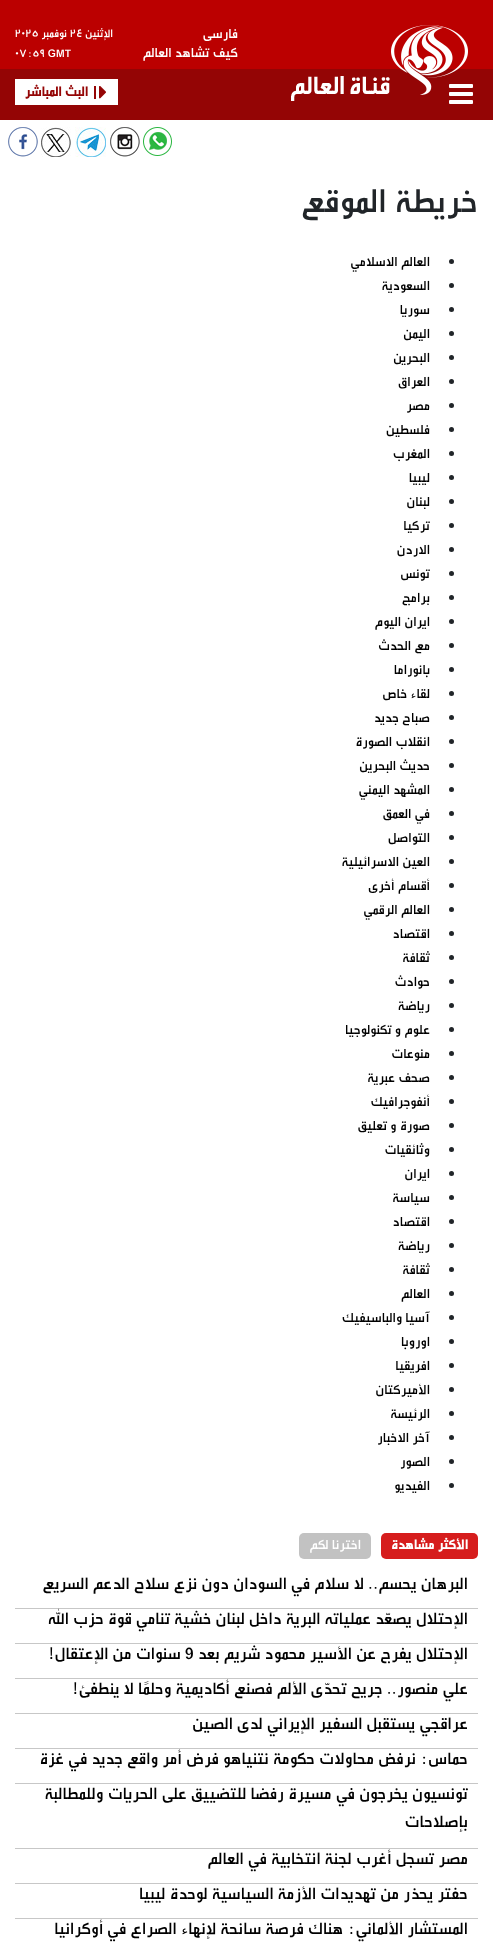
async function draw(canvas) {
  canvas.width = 493;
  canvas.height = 1951;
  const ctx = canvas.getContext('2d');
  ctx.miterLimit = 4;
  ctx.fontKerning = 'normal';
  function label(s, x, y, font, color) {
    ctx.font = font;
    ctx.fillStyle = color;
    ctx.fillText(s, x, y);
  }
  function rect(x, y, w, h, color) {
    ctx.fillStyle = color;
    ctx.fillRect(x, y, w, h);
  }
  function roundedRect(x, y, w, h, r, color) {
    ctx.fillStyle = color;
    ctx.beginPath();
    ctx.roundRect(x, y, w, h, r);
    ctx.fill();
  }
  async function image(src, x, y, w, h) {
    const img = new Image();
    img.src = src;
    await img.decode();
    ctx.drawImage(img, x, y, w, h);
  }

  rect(0, 0, 493, 1951, '#fff');
  rect(0, 69, 493, 51, '#940505');
  rect(0, 0, 493, 69, '#b00');
  await image('assets/img1.png', 291, 25, 177, 76);
  ctx.direction = 'rtl';
  label('فارسی', 238, 38, '300 16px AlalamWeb', '#fff');
  label('كيف تشاهد العالم', 238, 57, '300 16px AlalamWeb', '#fff');
  label('الإثنين', 113, 37, '300 13px AlalamWeb', '#fff');
  ctx.direction = 'ltr';
  label('٢٤', 70, 37, '300 13px AlalamWeb', '#fff');
  ctx.direction = 'rtl';
  label('نوفمبر', 67, 37, '300 13px AlalamWeb', '#fff');
  ctx.direction = 'ltr';
  label('٢٠٢٥', 15, 37, '300 13px AlalamWeb', '#fff');
  label('٠٧:٥٩ GMT', 15, 57, '300 13px AlalamWeb', '#fff');
  await image('assets/img2.png', 449, 84, 24, 20);
  rect(15, 79, 103, 26, '#fff');
  await image('assets/img3.png', 99, 86, 7, 13);
  rect(94, 86, 2, 13, '#940505');
  ctx.direction = 'rtl';
  label('البث المباشر', 88, 96, 'bold 16px AlalamWeb', '#940505');
  await image('assets/img4.png', 143, 127, 29, 29);
  await image('assets/img5.png', 110, 127, 30, 30);
  await image('assets/img6.png', 75, 127, 31, 30);
  await image('assets/img7.png', 41, 127, 30, 30);
  await image('assets/img8.png', 8, 127, 30, 30);
  label('خريطة الموقع', 478, 212, '300 40px AlalamWeb', '#212529');
  ctx.beginPath();
  ctx.arc(451.5, 261.5, 2.5, 0, 2 * Math.PI);
  ctx.fill();
  label('العالم الاسلامي', 430, 266, '300 16px AlalamWeb', '#000');
  ctx.fillStyle = '#212529';
  ctx.beginPath();
  ctx.arc(451.5, 285.5, 2.5, 0, 2 * Math.PI);
  ctx.fill();
  label('السعودية', 430, 290, '300 16px AlalamWeb', '#000');
  ctx.fillStyle = '#212529';
  ctx.beginPath();
  ctx.arc(451.5, 309.5, 2.5, 0, 2 * Math.PI);
  ctx.fill();
  label('سوریا', 430, 314, '300 16px AlalamWeb', '#000');
  ctx.fillStyle = '#212529';
  ctx.beginPath();
  ctx.arc(451.5, 333.5, 2.5, 0, 2 * Math.PI);
  ctx.fill();
  label('اليمن', 430, 338, '300 16px AlalamWeb', '#000');
  ctx.fillStyle = '#212529';
  ctx.beginPath();
  ctx.arc(451.5, 357.5, 2.5, 0, 2 * Math.PI);
  ctx.fill();
  label('البحرين', 430, 362, '300 16px AlalamWeb', '#000');
  ctx.fillStyle = '#212529';
  ctx.beginPath();
  ctx.arc(451.5, 381.5, 2.5, 0, 2 * Math.PI);
  ctx.fill();
  label('العراق', 430, 386, '300 16px AlalamWeb', '#000');
  ctx.fillStyle = '#212529';
  ctx.beginPath();
  ctx.arc(451.5, 405.5, 2.5, 0, 2 * Math.PI);
  ctx.fill();
  label('مصر', 430, 410, '300 16px AlalamWeb', '#000');
  ctx.fillStyle = '#212529';
  ctx.beginPath();
  ctx.arc(451.5, 429.5, 2.5, 0, 2 * Math.PI);
  ctx.fill();
  label('فلسطين', 430, 434, '300 16px AlalamWeb', '#000');
  ctx.fillStyle = '#212529';
  ctx.beginPath();
  ctx.arc(451.5, 453.5, 2.5, 0, 2 * Math.PI);
  ctx.fill();
  label('المغرب', 430, 458, '300 16px AlalamWeb', '#000');
  ctx.fillStyle = '#212529';
  ctx.beginPath();
  ctx.arc(451.5, 477.5, 2.5, 0, 2 * Math.PI);
  ctx.fill();
  label('ليبيا', 430, 482, '300 16px AlalamWeb', '#000');
  ctx.fillStyle = '#212529';
  ctx.beginPath();
  ctx.arc(451.5, 501.5, 2.5, 0, 2 * Math.PI);
  ctx.fill();
  label('لبنان', 430, 506, '300 16px AlalamWeb', '#000');
  ctx.fillStyle = '#212529';
  ctx.beginPath();
  ctx.arc(451.5, 525.5, 2.5, 0, 2 * Math.PI);
  ctx.fill();
  label('ترکیا', 430, 530, '300 16px AlalamWeb', '#000');
  ctx.fillStyle = '#212529';
  ctx.beginPath();
  ctx.arc(451.5, 549.5, 2.5, 0, 2 * Math.PI);
  ctx.fill();
  label('الاردن', 430, 554, '300 16px AlalamWeb', '#000');
  ctx.fillStyle = '#212529';
  ctx.beginPath();
  ctx.arc(451.5, 573.5, 2.5, 0, 2 * Math.PI);
  ctx.fill();
  label('تونس', 430, 578, '300 16px AlalamWeb', '#000');
  ctx.fillStyle = '#212529';
  ctx.beginPath();
  ctx.arc(451.5, 597.5, 2.5, 0, 2 * Math.PI);
  ctx.fill();
  label('برامج', 430, 602, '300 16px AlalamWeb', '#000');
  ctx.fillStyle = '#212529';
  ctx.beginPath();
  ctx.arc(451.5, 621.5, 2.5, 0, 2 * Math.PI);
  ctx.fill();
  label('ايران اليوم', 430, 626, '300 16px AlalamWeb', '#000');
  ctx.fillStyle = '#212529';
  ctx.beginPath();
  ctx.arc(451.5, 645.5, 2.5, 0, 2 * Math.PI);
  ctx.fill();
  label('مع الحدث', 430, 650, '300 16px AlalamWeb', '#000');
  ctx.fillStyle = '#212529';
  ctx.beginPath();
  ctx.arc(451.5, 669.5, 2.5, 0, 2 * Math.PI);
  ctx.fill();
  label('بانوراما', 430, 674, '300 16px AlalamWeb', '#000');
  ctx.fillStyle = '#212529';
  ctx.beginPath();
  ctx.arc(451.5, 693.5, 2.5, 0, 2 * Math.PI);
  ctx.fill();
  label('لقاء خاص', 430, 698, '300 16px AlalamWeb', '#000');
  ctx.fillStyle = '#212529';
  ctx.beginPath();
  ctx.arc(451.5, 717.5, 2.5, 0, 2 * Math.PI);
  ctx.fill();
  label('صباح جديد', 430, 722, '300 16px AlalamWeb', '#000');
  ctx.fillStyle = '#212529';
  ctx.beginPath();
  ctx.arc(451.5, 741.5, 2.5, 0, 2 * Math.PI);
  ctx.fill();
  label('انقلاب الصورة', 430, 746, '300 16px AlalamWeb', '#000');
  ctx.fillStyle = '#212529';
  ctx.beginPath();
  ctx.arc(451.5, 765.5, 2.5, 0, 2 * Math.PI);
  ctx.fill();
  label('حديث البحرين', 430, 770, '300 16px AlalamWeb', '#000');
  ctx.fillStyle = '#212529';
  ctx.beginPath();
  ctx.arc(451.5, 789.5, 2.5, 0, 2 * Math.PI);
  ctx.fill();
  label('المشهد اليمني', 430, 794, '300 16px AlalamWeb', '#000');
  ctx.fillStyle = '#212529';
  ctx.beginPath();
  ctx.arc(451.5, 813.5, 2.5, 0, 2 * Math.PI);
  ctx.fill();
  label('في العمق', 430, 818, '300 16px AlalamWeb', '#000');
  ctx.fillStyle = '#212529';
  ctx.beginPath();
  ctx.arc(451.5, 837.5, 2.5, 0, 2 * Math.PI);
  ctx.fill();
  label('التواصل', 430, 842, '300 16px AlalamWeb', '#000');
  ctx.fillStyle = '#212529';
  ctx.beginPath();
  ctx.arc(451.5, 861.5, 2.5, 0, 2 * Math.PI);
  ctx.fill();
  label('العين الاسرائيلية', 430, 866, '300 16px AlalamWeb', '#000');
  ctx.fillStyle = '#212529';
  ctx.beginPath();
  ctx.arc(451.5, 885.5, 2.5, 0, 2 * Math.PI);
  ctx.fill();
  label('أقسام أخری', 430, 890, '300 16px AlalamWeb', '#000');
  ctx.fillStyle = '#212529';
  ctx.beginPath();
  ctx.arc(451.5, 909.5, 2.5, 0, 2 * Math.PI);
  ctx.fill();
  label('العالم الرقمي', 430, 914, '300 16px AlalamWeb', '#000');
  ctx.fillStyle = '#212529';
  ctx.beginPath();
  ctx.arc(451.5, 933.5, 2.5, 0, 2 * Math.PI);
  ctx.fill();
  label('اقتصاد', 430, 938, '300 16px AlalamWeb', '#000');
  ctx.fillStyle = '#212529';
  ctx.beginPath();
  ctx.arc(451.5, 957.5, 2.5, 0, 2 * Math.PI);
  ctx.fill();
  label('ثقافة', 430, 962, '300 16px AlalamWeb', '#000');
  ctx.fillStyle = '#212529';
  ctx.beginPath();
  ctx.arc(451.5, 981.5, 2.5, 0, 2 * Math.PI);
  ctx.fill();
  label('حوادث', 430, 986, '300 16px AlalamWeb', '#000');
  ctx.fillStyle = '#212529';
  ctx.beginPath();
  ctx.arc(451.5, 1005.5, 2.5, 0, 2 * Math.PI);
  ctx.fill();
  label('رياضة', 430, 1010, '300 16px AlalamWeb', '#000');
  ctx.fillStyle = '#212529';
  ctx.beginPath();
  ctx.arc(451.5, 1029.5, 2.5, 0, 2 * Math.PI);
  ctx.fill();
  label('علوم و تكنولوجيا', 430, 1034, '300 16px AlalamWeb', '#000');
  ctx.fillStyle = '#212529';
  ctx.beginPath();
  ctx.arc(451.5, 1053.5, 2.5, 0, 2 * Math.PI);
  ctx.fill();
  label('منوعات', 430, 1058, '300 16px AlalamWeb', '#000');
  ctx.fillStyle = '#212529';
  ctx.beginPath();
  ctx.arc(451.5, 1077.5, 2.5, 0, 2 * Math.PI);
  ctx.fill();
  label('صحف عبرية', 430, 1082, '300 16px AlalamWeb', '#000');
  ctx.fillStyle = '#212529';
  ctx.beginPath();
  ctx.arc(451.5, 1101.5, 2.5, 0, 2 * Math.PI);
  ctx.fill();
  label('أنفوجرافيك', 430, 1106, '300 16px AlalamWeb', '#000');
  ctx.fillStyle = '#212529';
  ctx.beginPath();
  ctx.arc(451.5, 1125.5, 2.5, 0, 2 * Math.PI);
  ctx.fill();
  label('صورة و تعلیق', 430, 1130, '300 16px AlalamWeb', '#000');
  ctx.fillStyle = '#212529';
  ctx.beginPath();
  ctx.arc(451.5, 1149.5, 2.5, 0, 2 * Math.PI);
  ctx.fill();
  label('وثائقيات', 430, 1154, '300 16px AlalamWeb', '#000');
  ctx.fillStyle = '#212529';
  ctx.beginPath();
  ctx.arc(451.5, 1173.5, 2.5, 0, 2 * Math.PI);
  ctx.fill();
  label('ايران', 430, 1178, '300 16px AlalamWeb', '#000');
  ctx.fillStyle = '#212529';
  ctx.beginPath();
  ctx.arc(451.5, 1197.5, 2.5, 0, 2 * Math.PI);
  ctx.fill();
  label('سياسة', 430, 1202, '300 16px AlalamWeb', '#000');
  ctx.fillStyle = '#212529';
  ctx.beginPath();
  ctx.arc(451.5, 1221.5, 2.5, 0, 2 * Math.PI);
  ctx.fill();
  label('اقتصاد', 430, 1226, '300 16px AlalamWeb', '#000');
  ctx.fillStyle = '#212529';
  ctx.beginPath();
  ctx.arc(451.5, 1245.5, 2.5, 0, 2 * Math.PI);
  ctx.fill();
  label('رياضة', 430, 1250, '300 16px AlalamWeb', '#000');
  ctx.fillStyle = '#212529';
  ctx.beginPath();
  ctx.arc(451.5, 1269.5, 2.5, 0, 2 * Math.PI);
  ctx.fill();
  label('ثقافة', 430, 1274, '300 16px AlalamWeb', '#000');
  ctx.fillStyle = '#212529';
  ctx.beginPath();
  ctx.arc(451.5, 1293.5, 2.5, 0, 2 * Math.PI);
  ctx.fill();
  label('العالم', 430, 1298, '300 16px AlalamWeb', '#000');
  ctx.fillStyle = '#212529';
  ctx.beginPath();
  ctx.arc(451.5, 1317.5, 2.5, 0, 2 * Math.PI);
  ctx.fill();
  label('آسيا والباسيفيك', 430, 1322, '300 16px AlalamWeb', '#000');
  ctx.fillStyle = '#212529';
  ctx.beginPath();
  ctx.arc(451.5, 1341.5, 2.5, 0, 2 * Math.PI);
  ctx.fill();
  label('اوروبا', 430, 1346, '300 16px AlalamWeb', '#000');
  ctx.fillStyle = '#212529';
  ctx.beginPath();
  ctx.arc(451.5, 1365.5, 2.5, 0, 2 * Math.PI);
  ctx.fill();
  label('افریقیا', 430, 1370, '300 16px AlalamWeb', '#000');
  ctx.fillStyle = '#212529';
  ctx.beginPath();
  ctx.arc(451.5, 1389.5, 2.5, 0, 2 * Math.PI);
  ctx.fill();
  label('الأميركتان', 430, 1394, '300 16px AlalamWeb', '#000');
  ctx.fillStyle = '#212529';
  ctx.beginPath();
  ctx.arc(451.5, 1413.5, 2.5, 0, 2 * Math.PI);
  ctx.fill();
  label('الرئيسة', 430, 1418, '300 16px AlalamWeb', '#000');
  ctx.fillStyle = '#212529';
  ctx.beginPath();
  ctx.arc(451.5, 1437.5, 2.5, 0, 2 * Math.PI);
  ctx.fill();
  label('آخر الاخبار', 430, 1442, '300 16px AlalamWeb', '#000');
  ctx.fillStyle = '#212529';
  ctx.beginPath();
  ctx.arc(451.5, 1461.5, 2.5, 0, 2 * Math.PI);
  ctx.fill();
  label('الصور', 430, 1466, '300 16px AlalamWeb', '#000');
  ctx.fillStyle = '#212529';
  ctx.beginPath();
  ctx.arc(451.5, 1485.5, 2.5, 0, 2 * Math.PI);
  ctx.fill();
  label('الفيديو', 430, 1490, '300 16px AlalamWeb', '#000');
  roundedRect(381, 1533, 97, 26, 5, '#d61d1d');
  label('الأکثر مشاهدة', 468, 1549, 'bold 16px AlalamWeb', '#fff');
  roundedRect(299, 1533, 72, 26, 5, '#c2c2c2');
  label('اخترنا لکم', 361, 1549, '300 16px AlalamWeb', '#fff');
  rect(15, 1608, 463, 1, '#c7c7c7');
  label('البرهان يحسم.. لا سلام في السودان دون نزع سلاح الدعم السريع', 468, 1589, '300 20px AlalamWeb', '#000');
  rect(15, 1643, 463, 1, '#c7c7c7');
  label('الإحتلال يصعّد عملياته البرية داخل لبنان خشية تنامي قوة حزب الله', 468, 1624, '300 20px AlalamWeb', '#000');
  rect(15, 1678, 463, 1, '#c7c7c7');
  label('الإحتلال يفرج عن الأسير محمود شريم بعد', 468, 1659, '300 20px AlalamWeb', '#000');
  ctx.direction = 'ltr';
  label('9', 185, 1659, '300 20px AlalamWeb', '#000');
  ctx.direction = 'rtl';
  label('سنوات من الإعتقال!', 181, 1659, '300 20px AlalamWeb', '#000');
  rect(15, 1713, 463, 1, '#c7c7c7');
  label('علي منصور.. جريح تحدّى الألم فصنع أكاديمية وحلمًا لا ينطفئ!', 468, 1694, '300 20px AlalamWeb', '#000');
  rect(15, 1748, 463, 1, '#c7c7c7');
  label('عراقجي يستقبل السفير الإيراني لدى الصين', 468, 1729, '300 20px AlalamWeb', '#000');
  rect(15, 1783, 463, 1, '#c7c7c7');
  label('حماس: نرفض محاولات حكومة نتنياهو فرض أمر واقع جديد في غزة', 468, 1764, '300 20px AlalamWeb', '#000');
  rect(15, 1848, 463, 1, '#c7c7c7');
  label('تونسيون يخرجون في مسيرة رفضا للتضييق على الحريات وللمطالبة', 468, 1799, '300 20px AlalamWeb', '#000');
  label('بإصلاحات', 468, 1827, '300 20px AlalamWeb', '#000');
  rect(15, 1883, 463, 1, '#c7c7c7');
  label('مصر تسجل أغرب لجنة انتخابية في العالم', 468, 1864, '300 20px AlalamWeb', '#000');
  rect(15, 1918, 463, 1, '#c7c7c7');
  label('حفتر يحذر من تهديدات الأزمة السياسية لوحدة ليبيا', 468, 1899, '300 20px AlalamWeb', '#000');
  label('المستشار الألماني: هناك فرصة سانحة لإنهاء الصراع في أوكرانيا', 468, 1934, '300 20px AlalamWeb', '#000');
}

draw(document.querySelector('canvas'));
